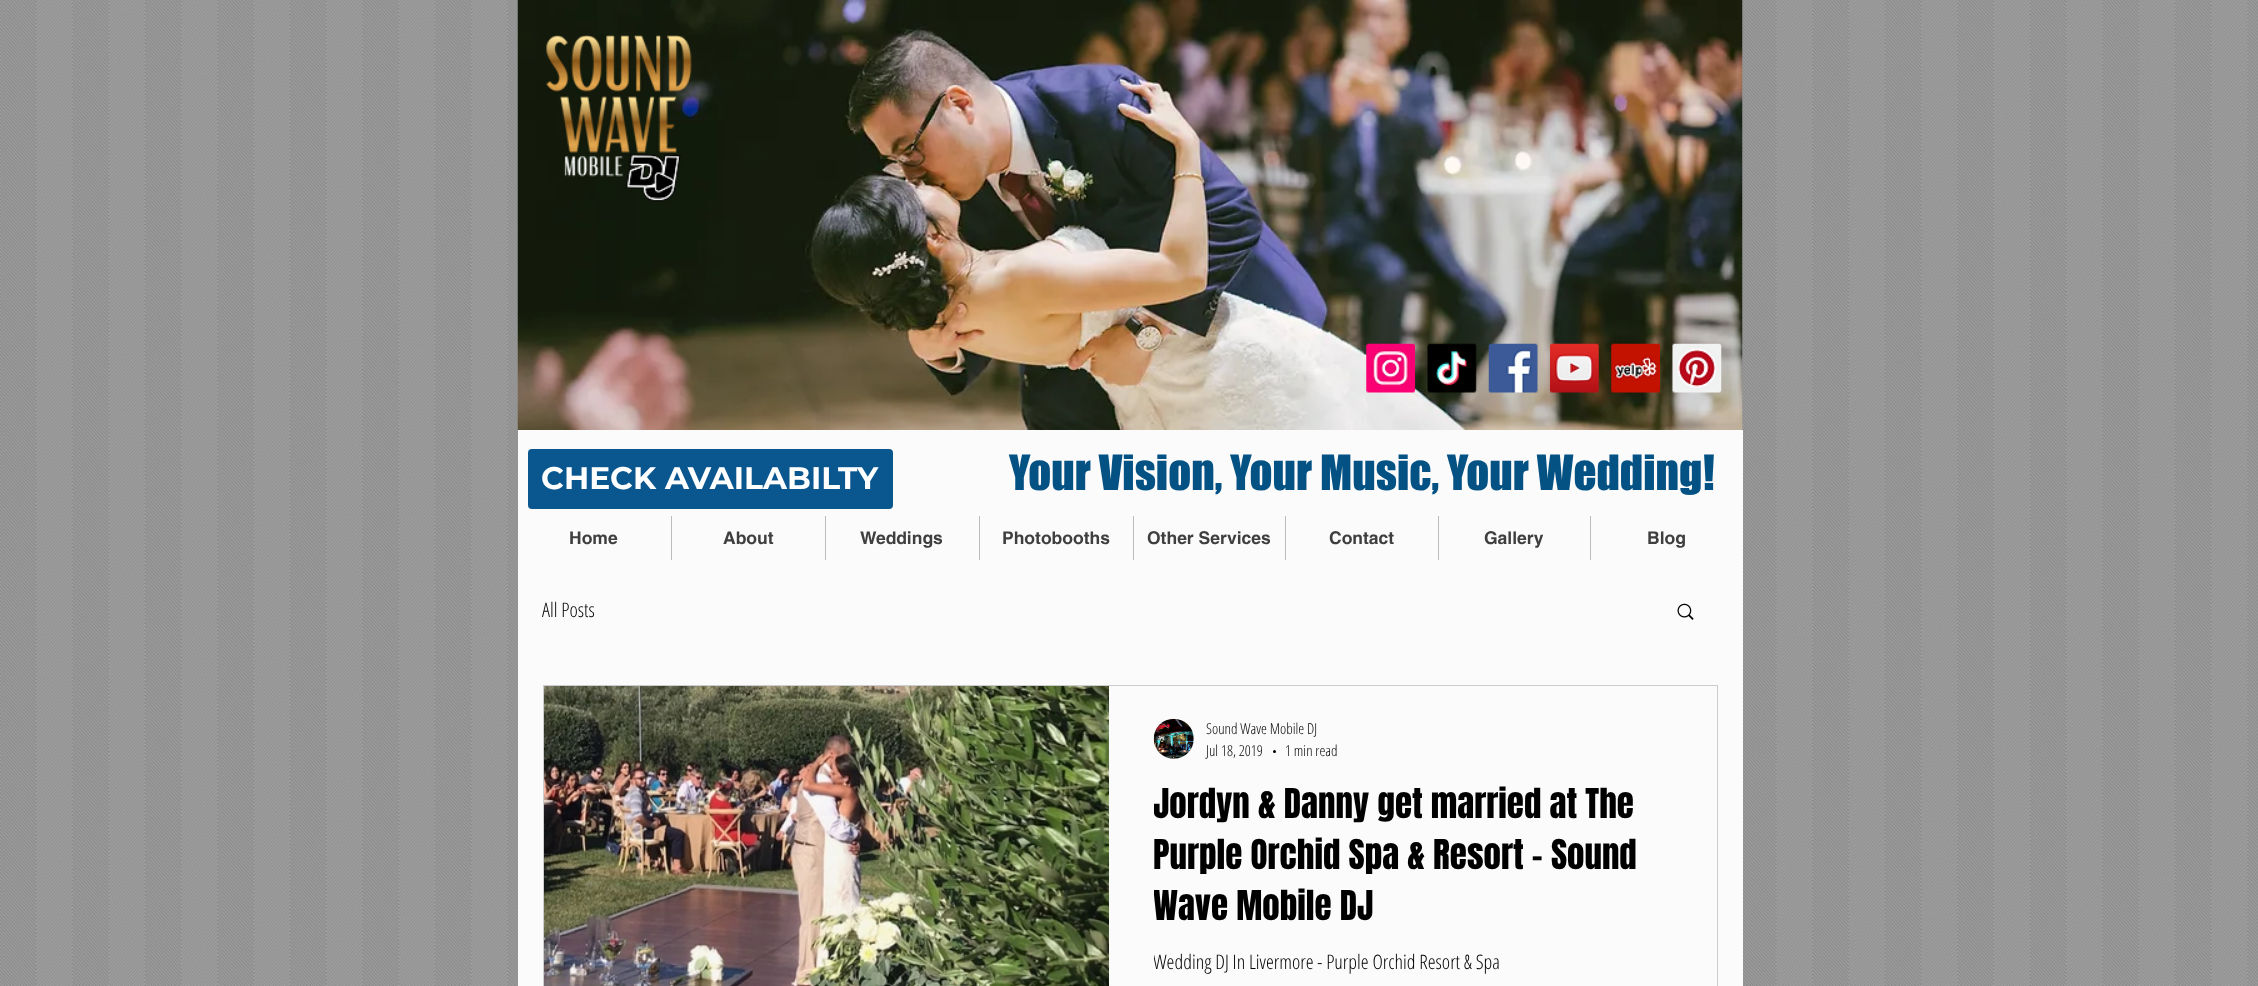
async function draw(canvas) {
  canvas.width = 2258;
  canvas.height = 986;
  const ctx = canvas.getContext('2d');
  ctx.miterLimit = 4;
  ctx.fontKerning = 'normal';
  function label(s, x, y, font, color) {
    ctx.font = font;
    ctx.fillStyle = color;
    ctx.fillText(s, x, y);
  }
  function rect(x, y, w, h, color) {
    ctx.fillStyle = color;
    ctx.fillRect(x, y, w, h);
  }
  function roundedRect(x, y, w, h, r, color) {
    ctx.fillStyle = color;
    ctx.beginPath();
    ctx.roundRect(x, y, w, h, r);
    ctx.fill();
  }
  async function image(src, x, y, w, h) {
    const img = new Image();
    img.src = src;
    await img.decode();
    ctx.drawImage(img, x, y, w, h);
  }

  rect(0, 0, 2258, 986, '#a7a7a7');
  await image('assets/img1.png', 0, 0, 2258, 986);
  await image('assets/img2.png', 517, 0, 1226, 430);
  await image('assets/img3.png', 546, 35, 146, 167);
  await image('assets/img4.png', 1366, 343, 49, 50);
  await image('assets/img5.png', 1427, 343, 50, 50);
  await image('assets/img6.png', 1488, 343, 50, 50);
  await image('assets/img7.png', 1550, 343, 49, 50);
  await image('assets/img8.png', 1611, 343, 49, 50);
  await image('assets/img9.png', 1672, 343, 50, 50);
  rect(518, 430, 1225, 556, '#fbfbfb');
  roundedRect(528, 449, 365, 60, 4, '#0a578f');
  label('CHECK AVAILABILTY', 541, 489, 'bold 31.25px Montserrat', '#fff');
  label('Your Vision, Your Music, Your Wedding!', 1009, 490, '45px "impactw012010"', '#045184');
  label('Home', 569, 544, 'bold 17.5px helvetica', '#3f3f3f');
  rect(671, 516, 1, 44, '#bcbcbc');
  label('About', 723, 544, 'bold 17.5px helvetica', '#3f3f3f');
  rect(825, 516, 1, 44, '#bcbcbc');
  label('Weddings', 860, 544, 'bold 17.5px helvetica', '#3f3f3f');
  rect(979, 516, 1, 44, '#bcbcbc');
  label('Photobooths', 1002, 544, 'bold 17.5px helvetica', '#3f3f3f');
  rect(1133, 516, 1, 44, '#bcbcbc');
  label('Other Services', 1147, 544, 'bold 17.5px helvetica', '#3f3f3f');
  rect(1285, 516, 1, 44, '#bcbcbc');
  label('Contact', 1329, 544, 'bold 17.5px helvetica', '#3f3f3f');
  rect(1438, 516, 1, 44, '#bcbcbc');
  label('Gallery', 1484, 544, 'bold 17.5px helvetica', '#3f3f3f');
  rect(1590, 516, 1, 44, '#bcbcbc');
  label('Blog', 1647, 544, 'bold 17.5px helvetica', '#3f3f3f');
  label('All Posts', 542, 617, '300 20px Open Sans Condensed', '#000');
  await image('assets/img10.png', 1677, 603, 17, 17);
  ctx.strokeStyle = '#ccc';
  ctx.strokeRect(543.5, 685.5, 1174, 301);
  await image('assets/img11.png', 544, 686, 565, 300);
  await image('assets/img12.png', 1153, 718, 41, 41);
  label('Sound Wave Mobile DJ', 1206, 734, '300 15px Open Sans Condensed', '#000');
  label('Jul 18, 2019', 1206, 756, '300 15px Open Sans Condensed', '#000');
  ctx.beginPath();
  ctx.arc(1274.5, 751.5, 1.5, 0, 2 * Math.PI);
  ctx.fill();
  label('1 min read', 1285, 756, '300 15px Open Sans Condensed', '#000');
  ctx.save();
  ctx.beginPath();
  ctx.rect(1154, 778, 517, 153);
  ctx.clip();
  label('Jordyn & Danny get married at The', 1153, 818, '35px Anton', '#000');
  ctx.restore();
  label('Purple Orchid Spa & Resort - Sound', 1153, 869, '35px Anton', '#000');
  ctx.save();
  ctx.beginPath();
  ctx.rect(1154, 778, 517, 153);
  ctx.clip();
  label('Wave Mobile DJ', 1153, 920, '35px Anton', '#000');
  ctx.restore();
  ctx.save();
  ctx.beginPath();
  ctx.rect(1154, 946, 517, 30);
  ctx.clip();
  label('Wedding DJ In Livermore - Purple Orchid Resort & Spa', 1153, 969, '300 20px Open Sans Condensed', '#000');
  ctx.restore();
}

draw(document.querySelector('canvas'));
